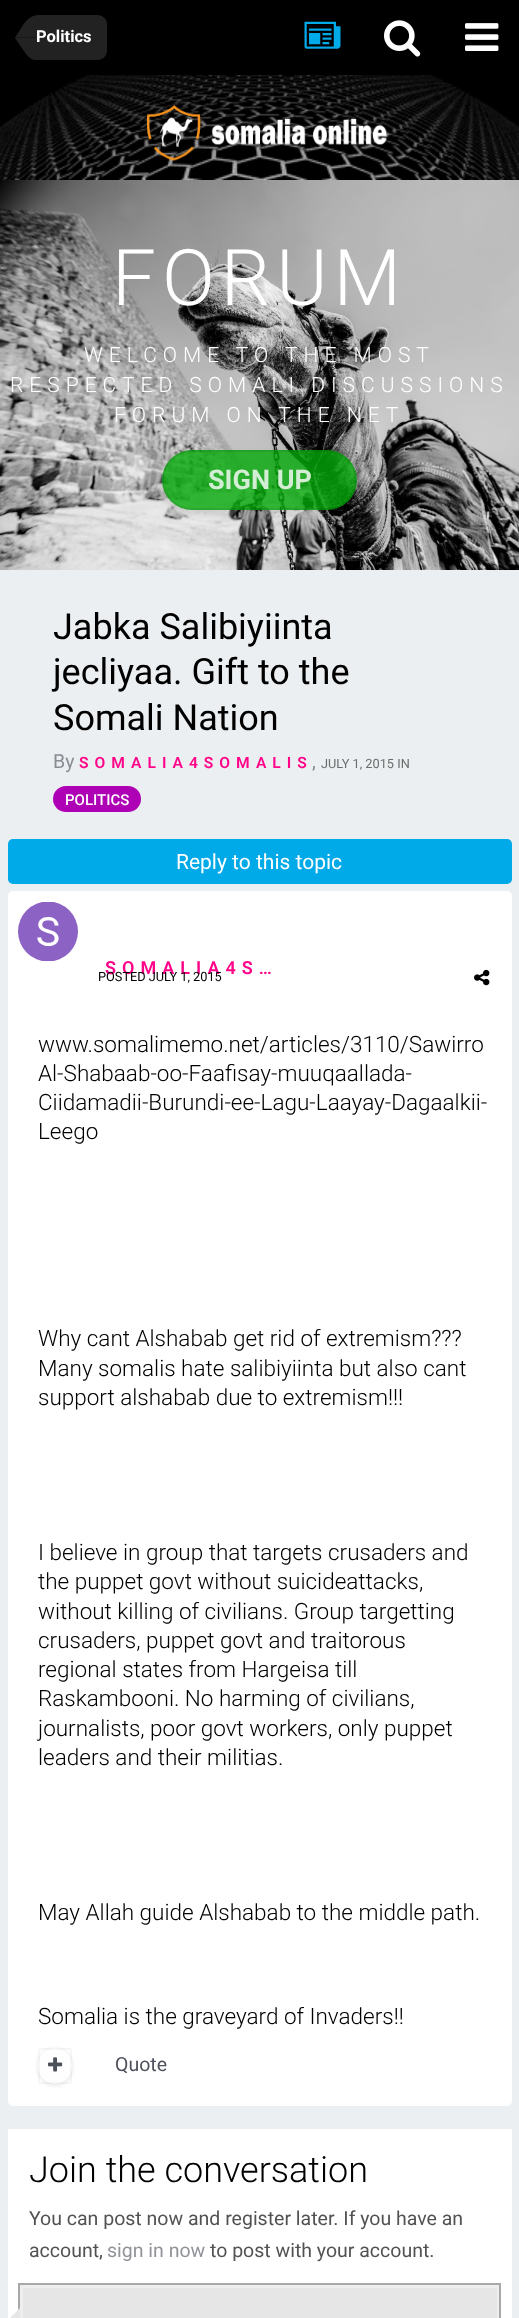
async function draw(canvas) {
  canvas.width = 519;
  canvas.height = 2318;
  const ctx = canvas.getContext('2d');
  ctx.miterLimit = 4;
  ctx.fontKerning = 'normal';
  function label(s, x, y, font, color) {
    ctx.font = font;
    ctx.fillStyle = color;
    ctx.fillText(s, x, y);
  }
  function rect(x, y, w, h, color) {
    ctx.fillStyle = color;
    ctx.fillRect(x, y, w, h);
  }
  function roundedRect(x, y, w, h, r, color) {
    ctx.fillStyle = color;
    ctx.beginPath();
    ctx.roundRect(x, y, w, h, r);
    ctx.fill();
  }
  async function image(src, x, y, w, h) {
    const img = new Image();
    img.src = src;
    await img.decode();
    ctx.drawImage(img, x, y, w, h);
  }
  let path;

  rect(0, 0, 519, 2318, '#eceff1');
  rect(0, 0, 519, 75, '#000');
  ctx.fillStyle = '#222';
  ctx.beginPath();
  ctx.roundRect(36, 15, 71, 45, [0, 9, 9, 0]);
  ctx.fill();
  path = new Path2D('M15 37.5H36V60C33 60 29.5 58.5 26 54L15 38Z');
  ctx.fill(path);
  path = new Path2D('M36 15.5V37.5H15L19 31.5C22.5 25.5 28.5 15.5 36 15.5Z');
  ctx.fill(path);
  label('Politics', 36, 42, 'bold 16.5px Roboto', '#fff');
  await image('assets/img1.png', 304, 21, 37, 28);
  await image('assets/img2.png', 384, 20, 37, 37);
  await image('assets/img3.png', 465, 23, 34, 28);
  await image('assets/img4.png', 0, 75, 519, 105);
  await image('assets/img5.png', 147, 105, 240, 56);
  await image('assets/img6.png', 0, 180, 519, 390);
  ctx.letterSpacing = '6px';
  label('FORUM', 112, 305, '300 78px Roboto', '#fff');
  label('WELCOME TO THE MOST', 84, 362, '300 21px Roboto', '#fff');
  label('RESPECTED SOMALI DISCUSSIONS', 10, 392, '300 21px Roboto', '#fff');
  label('FORUM ON THE NET', 114, 422, '300 21px Roboto', '#fff');
  ctx.save();
  path = new Path2D('M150 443H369V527H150ZM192 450H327C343.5 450 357 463.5 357 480C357 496.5 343.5 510 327 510H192C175.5 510 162 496.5 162 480C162 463.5 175.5 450 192 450Z');
  ctx.clip(path, 'evenodd');
  ctx.fillStyle = '#0000001a';
  ctx.filter = 'blur(3.5px)';
  ctx.beginPath();
  ctx.roundRect(162, 455, 195, 60, 30);
  ctx.fill();
  ctx.filter = 'none';
  ctx.restore();
  roundedRect(162, 450, 195, 60, 30, '#02aa08cc');
  ctx.beginPath();
  ctx.roundRect(163, 451, 193, 58, 29);
  ctx.strokeStyle = '#00000014';
  ctx.lineWidth = 2;
  ctx.stroke();
  ctx.letterSpacing = '0px';
  label('SIGN UP', 208, 489, 'bold 27px Roboto', '#d3eed4');
  label('Jabka Salibiyiinta', 53, 639, '36px Roboto', '#000');
  label('jecliyaa. Gift to the', 53, 684, '36px Roboto', '#000');
  label('Somali Nation', 53, 730, '36px Roboto', '#000');
  label('By', 53, 768, '19.5px Roboto', '#888c93');
  ctx.letterSpacing = '6px';
  label('SOMALIA4SOMALIS', 79, 768, '600 15.6px Roboto', '#ff0389');
  ctx.letterSpacing = '0px';
  label('JULY 1, 2015 IN', 321, 768, '12.75px Roboto', '#6a6c6c');
  roundedRect(53, 786, 88, 26, 13, '#ae00b4');
  label('POLITICS', 65, 805, '500 15px Roboto', '#fff');
  label(',', 312, 768, '19.5px Roboto', '#888c93');
  roundedRect(8, 839, 504, 45, 5, '#00a9e8');
  label('Reply to this topic', 176, 869, '21px Roboto', '#fff');
  roundedRect(8, 891, 504, 1215, 5, '#fff');
  await image('assets/img7.png', 18, 902, 60, 60);
  ctx.letterSpacing = '6px';
  label('SOMALIA4S…', 105, 974, '600 18px Roboto', '#ff0389');
  ctx.letterSpacing = '0px';
  label('POSTED JULY 1, 2015', 98, 981, '12.75px Roboto', '#000');
  await image('assets/img8.png', 474, 969, 16, 17);
  label('www.somalimemo.net/articles/3110/Sawirro', 38, 1052, '300 22.5px Roboto', '#000');
  label('Al-Shabaab-oo-Faafisay-muuqaallada-', 38, 1081, '300 22.5px Roboto', '#000');
  label('Ciidamadii-Burundi-ee-Lagu-Laayay-Dagaalkii-', 38, 1110, '300 22.5px Roboto', '#000');
  label('Leego', 38, 1139, '300 22.5px Roboto', '#000');
  label('Why cant Alshabab get rid of extremism???', 38, 1346, '300 22.5px Roboto', '#000');
  label('Many somalis hate salibiyiinta but also cant', 38, 1376, '300 22.5px Roboto', '#000');
  label('support alshabab due to extremism!!!', 38, 1405, '300 22.5px Roboto', '#000');
  label('I believe in group that targets crusaders and', 38, 1560, '300 22.5px Roboto', '#000');
  label('the puppet govt without suicideattacks,', 38, 1589, '300 22.5px Roboto', '#000');
  label('without killing of civilians. Group targetting', 38, 1619, '300 22.5px Roboto', '#000');
  label('crusaders, puppet govt and traitorous', 38, 1648, '300 22.5px Roboto', '#000');
  label('regional states from Hargeisa till', 38, 1677, '300 22.5px Roboto', '#000');
  label('Raskambooni. No harming of civilians,', 38, 1706, '300 22.5px Roboto', '#000');
  label('journalists, poor govt workers, only puppet', 38, 1736, '300 22.5px Roboto', '#000');
  label('leaders and their militias.', 38, 1765, '300 22.5px Roboto', '#000');
  label('May Allah guide Alshabab to the middle path.', 38, 1920, '300 22.5px Roboto', '#000');
  label('Somalia is the graveyard of Invaders!!', 38, 2024, '300 22.5px Roboto', '#000');
  ctx.fillStyle = '#0000001f';
  ctx.filter = 'blur(2px)';
  ctx.beginPath();
  ctx.roundRect(38, 2049, 34, 36, 17);
  ctx.fill();
  ctx.filter = 'none';
  roundedRect(38, 2048, 34, 36, 17, '#fefefe');
  ctx.strokeStyle = '#00000008';
  ctx.strokeRect(39, 2049, 32, 34);
  await image('assets/img9.png', 48, 2057, 15, 15);
  label('Quote', 115, 2071, '19.5px Roboto', '#4e515b');
  rect(8, 2129, 504, 189, '#fff');
  label('Join the conversation', 29, 2182, '300 36px Roboto', '#000');
  label('You can post now and register later. If you have an', 29, 2225, '19.5px Roboto', '#525252');
  label('account,', 29, 2257, '19.5px Roboto', '#525252');
  label('sign in now', 107, 2257, '19.5px Roboto', '#919399');
  label('to post with your account.', 210, 2257, '19.5px Roboto', '#525252');
  ctx.fillStyle = '#eee';
  ctx.beginPath();
  ctx.rect(19, 2284, 481, 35);
  ctx.fill();
  ctx.strokeStyle = '#a8a8a8';
  ctx.stroke();
  ctx.fillStyle = '#e6e6e6';
  path = new Path2D('M20 2308V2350L-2 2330Z');
  ctx.fill(path);
  rect(23, 2288, 474, 30, '#e6e6e6');
}

draw(document.querySelector('canvas'));
